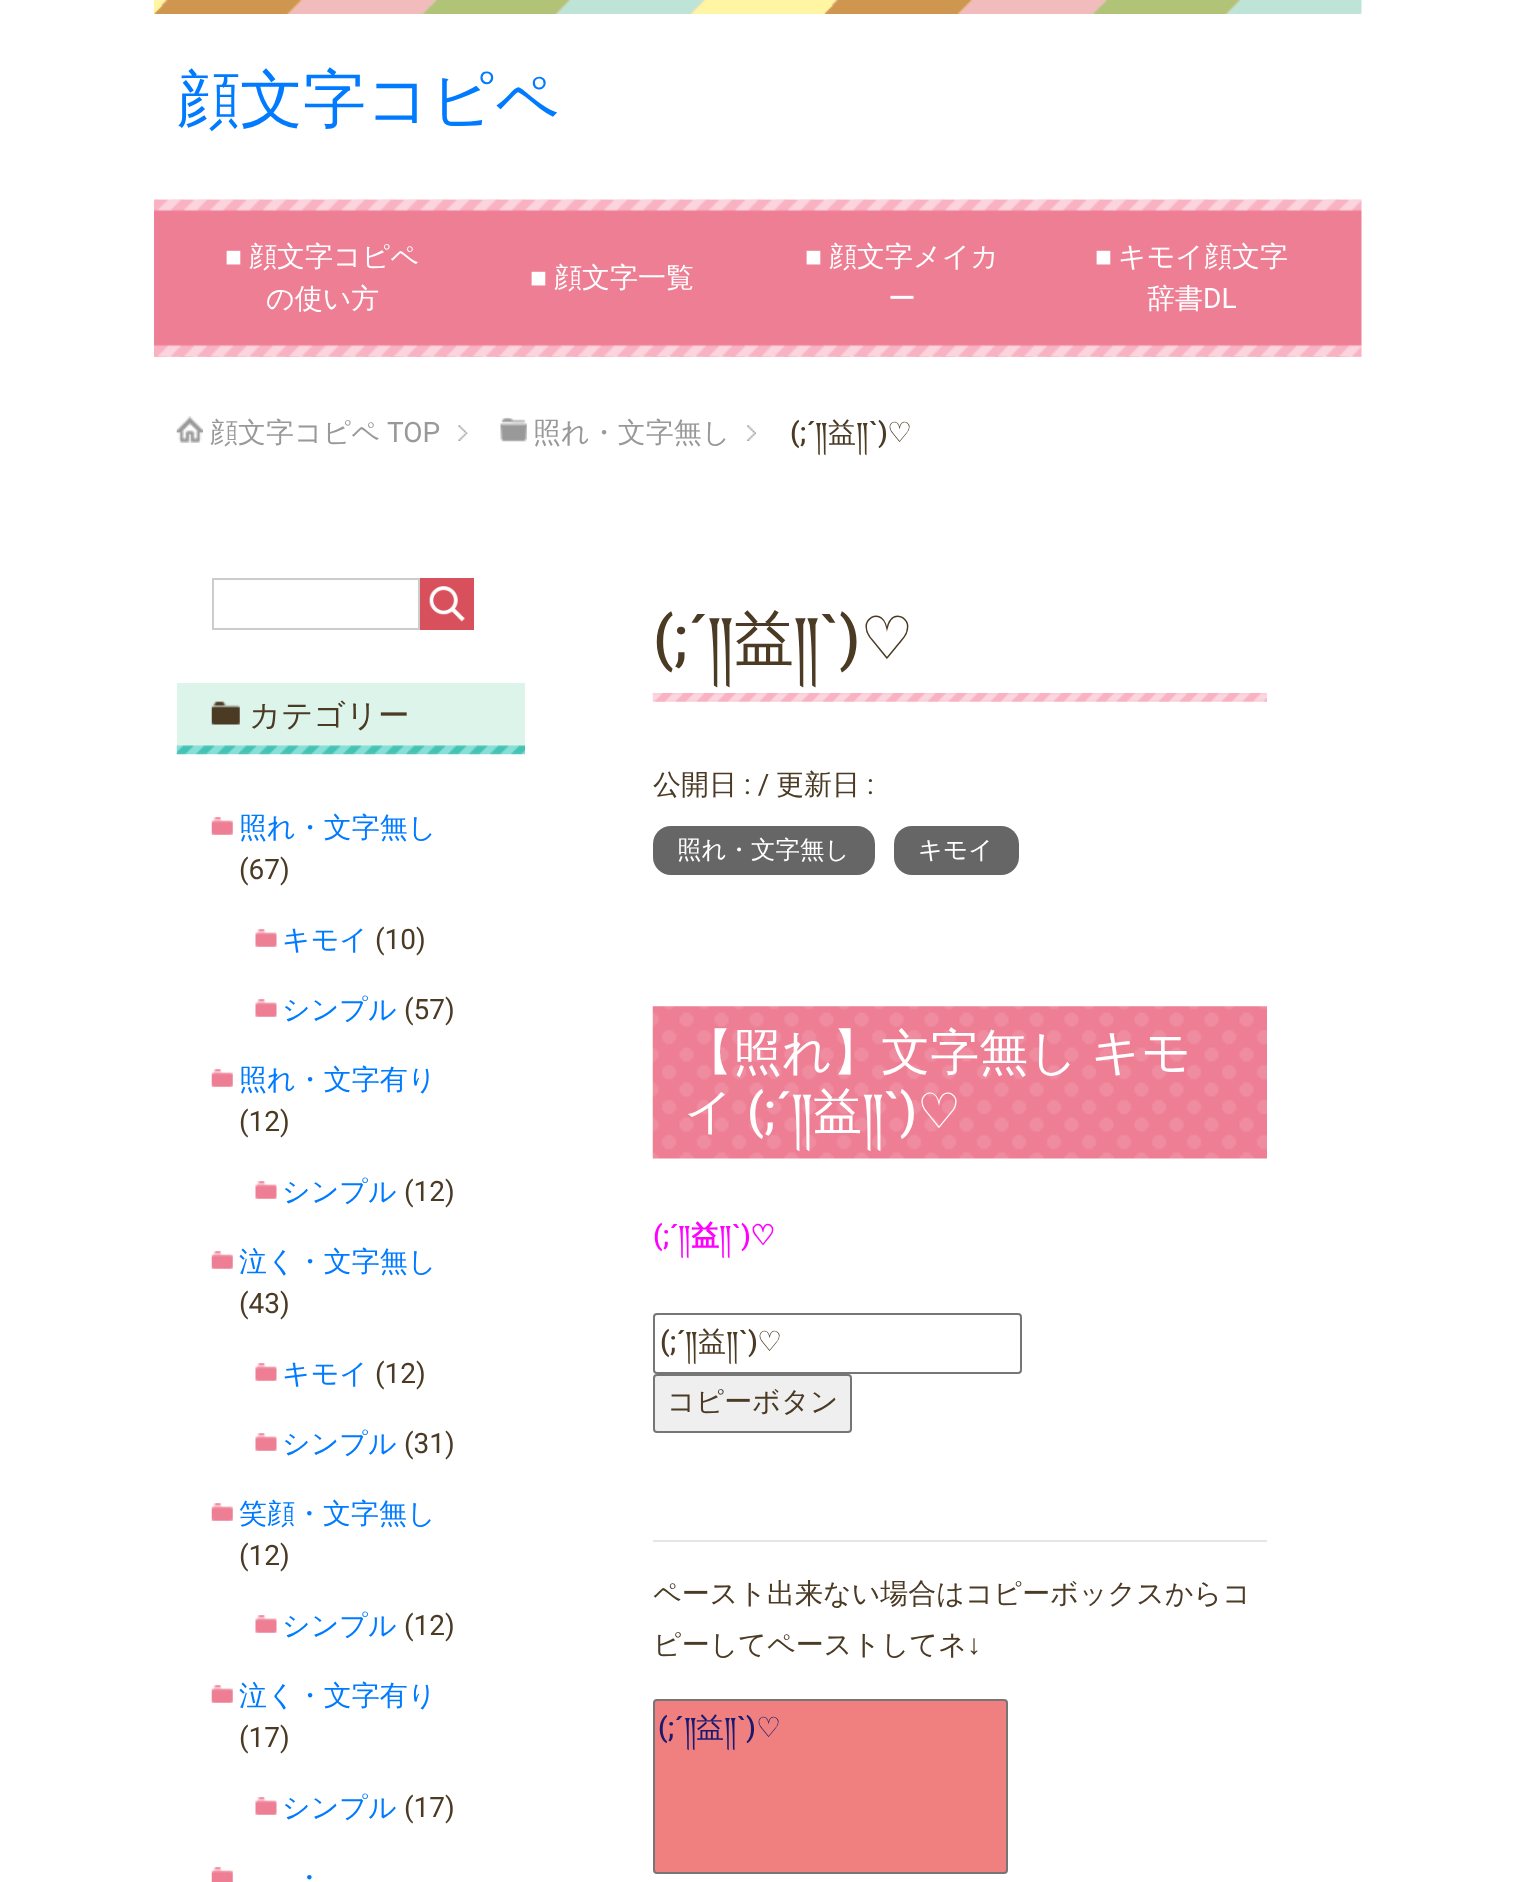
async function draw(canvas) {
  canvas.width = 1513;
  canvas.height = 1882;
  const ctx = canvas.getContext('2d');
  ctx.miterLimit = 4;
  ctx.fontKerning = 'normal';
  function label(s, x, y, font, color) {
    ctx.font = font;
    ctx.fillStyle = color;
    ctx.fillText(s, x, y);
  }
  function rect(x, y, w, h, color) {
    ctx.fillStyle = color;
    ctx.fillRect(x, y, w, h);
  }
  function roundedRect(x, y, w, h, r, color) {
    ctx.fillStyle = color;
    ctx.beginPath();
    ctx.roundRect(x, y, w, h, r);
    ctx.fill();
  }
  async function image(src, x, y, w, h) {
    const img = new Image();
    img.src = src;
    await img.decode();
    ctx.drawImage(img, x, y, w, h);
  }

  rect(0, 0, 1513, 1882, '#fff');
  await image('assets/img1.png', 154, 0, 1208, 14);
  label('顔文字コピペ', 177, 121, '500 63px WenQuanYi Zen Hei', '#007bff');
  await image('assets/img2.png', 154, 199, 1208, 158);
  label('■', 225, 266, '28px Liberation Sans', '#fff');
  label('顔文字コピペ', 249, 266, '500 28px WenQuanYi Zen Hei', '#fff');
  label('の使い方', 266, 308, '500 28px WenQuanYi Zen Hei', '#fff');
  label('■', 530, 287, '28px Liberation Sans', '#fff');
  label('顔文字一覧', 554, 287, '500 28px WenQuanYi Zen Hei', '#fff');
  label('■', 805, 266, '28px Liberation Sans', '#fff');
  label('顔文字メイカ', 829, 266, '500 28px WenQuanYi Zen Hei', '#fff');
  label('ー', 888, 308, '500 28px WenQuanYi Zen Hei', '#fff');
  label('■', 1095, 266, '28px Liberation Sans', '#fff');
  label('キモイ顔文字', 1118, 266, '500 28px WenQuanYi Zen Hei', '#fff');
  label('辞書', 1147, 308, '500 28px WenQuanYi Zen Hei', '#fff');
  label('DL', 1203, 308, '28px Roboto', '#fff');
  await image('assets/img3.png', 458, 425, 10, 16);
  await image('assets/img4.png', 176, 416, 27, 27);
  label('顔文字コピペ', 210, 442, '500 28px WenQuanYi Zen Hei', '#999');
  label('TOP', 387, 442, '28px Roboto', '#999');
  await image('assets/img5.png', 747, 425, 9, 16);
  await image('assets/img6.png', 500, 417, 27, 25);
  label('照れ・文字無し', 533, 442, '500 28px WenQuanYi Zen Hei', '#999');
  label('(;´', 790, 442, '500 28px Roboto', '#4b3a24');
  label('༎', 815, 442, '500 28px Noto Serif Tibetan', '#4b3a24');
  label('益', 828, 442, '500 28px WenQuanYi Zen Hei', '#4b3a24');
  label('༎', 856, 442, '500 28px Noto Serif Tibetan', '#4b3a24');
  label('`)', 869, 442, '500 28px Roboto', '#4b3a24');
  label('♡', 887, 442, '28px DejaVu Sans', '#4b3a24');
  ctx.strokeStyle = '#ccc';
  ctx.lineWidth = 2;
  ctx.strokeRect(213, 579, 206, 50);
  rect(420, 578, 54, 52, '#d8505c');
  await image('assets/img7.png', 429, 586, 36, 36);
  rect(177, 683, 348, 63, '#ddf4eb');
  await image('assets/img8.png', 176, 745, 349, 10);
  await image('assets/img9.png', 211, 701, 29, 24);
  label('カテゴリー', 249, 726, '500 31.5px WenQuanYi Zen Hei', '#4b3a24');
  await image('assets/img10.png', 211, 817, 22, 18);
  label('照れ・文字無し', 239, 837, '500 28px WenQuanYi Zen Hei', '#007bff');
  label('(67)', 239, 879, '28px Roboto', '#4b3a24');
  await image('assets/img11.png', 255, 929, 22, 18);
  label('キモイ', 282, 949, '500 28px WenQuanYi Zen Hei', '#007bff');
  label('(10)', 375, 949, '28px Roboto', '#4b3a24');
  await image('assets/img11.png', 255, 999, 22, 18);
  label('シンプル', 282, 1019, '500 28px WenQuanYi Zen Hei', '#007bff');
  label('(57)', 404, 1019, '28px Roboto', '#4b3a24');
  await image('assets/img10.png', 211, 1069, 22, 18);
  label('照れ・文字有り', 239, 1089, '500 28px WenQuanYi Zen Hei', '#007bff');
  label('(12)', 239, 1131, '28px Roboto', '#4b3a24');
  await image('assets/img11.png', 255, 1181, 22, 18);
  label('シンプル', 282, 1201, '500 28px WenQuanYi Zen Hei', '#007bff');
  label('(12)', 404, 1201, '28px Roboto', '#4b3a24');
  await image('assets/img10.png', 211, 1251, 22, 18);
  label('泣く・文字無し', 239, 1271, '500 28px WenQuanYi Zen Hei', '#007bff');
  label('(43)', 239, 1313, '28px Roboto', '#4b3a24');
  await image('assets/img11.png', 255, 1363, 22, 18);
  label('キモイ', 282, 1383, '500 28px WenQuanYi Zen Hei', '#007bff');
  label('(12)', 375, 1383, '28px Roboto', '#4b3a24');
  await image('assets/img11.png', 255, 1433, 22, 18);
  label('シンプル', 282, 1453, '500 28px WenQuanYi Zen Hei', '#007bff');
  label('(31)', 404, 1453, '28px Roboto', '#4b3a24');
  await image('assets/img10.png', 211, 1503, 22, 18);
  label('笑顔・文字無し', 239, 1523, '500 28px WenQuanYi Zen Hei', '#007bff');
  label('(12)', 239, 1565, '28px Roboto', '#4b3a24');
  await image('assets/img11.png', 255, 1615, 22, 18);
  label('シンプル', 282, 1635, '500 28px WenQuanYi Zen Hei', '#007bff');
  label('(12)', 404, 1635, '28px Roboto', '#4b3a24');
  await image('assets/img10.png', 211, 1685, 22, 18);
  label('泣く・文字有り', 239, 1705, '500 28px WenQuanYi Zen Hei', '#007bff');
  label('(17)', 239, 1747, '28px Roboto', '#4b3a24');
  await image('assets/img11.png', 255, 1797, 22, 18);
  label('シンプル', 282, 1817, '500 28px WenQuanYi Zen Hei', '#007bff');
  label('(17)', 404, 1817, '28px Roboto', '#4b3a24');
  await image('assets/img12.png', 211, 1867, 22, 15);
  label('・', 295, 1887, '500 28px WenQuanYi Zen Hei', '#007bff');
  await image('assets/img13.png', 652, 693, 615, 9);
  label('(;´', 653, 659, '500 60px Roboto', '#4b3a24');
  label('༎', 707, 659, '500 60px Noto Serif Tibetan', '#4b3a24');
  label('益', 734, 659, '500 60px WenQuanYi Zen Hei', '#4b3a24');
  label('༎', 793, 659, '500 60px Noto Serif Tibetan', '#4b3a24');
  label('`)', 820, 659, '500 60px Roboto', '#4b3a24');
  label('♡', 860, 659, '60px DejaVu Sans', '#4b3a24');
  label('公開日', 653, 794, '500 28px WenQuanYi Zen Hei', '#4b3a24');
  label(': /', 744, 794, '28px Roboto', '#4b3a24');
  label('更新日', 776, 794, '500 28px WenQuanYi Zen Hei', '#4b3a24');
  label(':', 867, 794, '28px Roboto', '#4b3a24');
  roundedRect(653, 826, 222, 49, 18, '#666');
  label('照れ・文字無し', 677, 858, '500 24.5px WenQuanYi Zen Hei', '#fff');
  roundedRect(894, 826, 125, 49, 18, '#666');
  label('キモイ', 918, 858, '500 24.5px WenQuanYi Zen Hei', '#fff');
  await image('assets/img14.png', 652, 1006, 615, 153);
  ctx.wordSpacing = '-2px';
  label('【照れ】文字無し キモ', 684, 1069, '500 49px WenQuanYi Zen Hei', '#fff');
  ctx.wordSpacing = '0px';
  label('イ', 684, 1128, '500 49px WenQuanYi Zen Hei', '#fff');
  label('(;´', 747, 1128, '500 49px Roboto', '#fff');
  label('༎', 791, 1128, '500 49px Noto Serif Tibetan', '#fff');
  label('益', 813, 1128, '500 49px WenQuanYi Zen Hei', '#fff');
  label('༎', 862, 1128, '500 49px Noto Serif Tibetan', '#fff');
  label('`)', 884, 1128, '500 49px Roboto', '#fff');
  label('♡', 917, 1128, '49px DejaVu Sans', '#fff');
  label('(;´', 653, 1245, '500 28px Roboto', '#f0f');
  label('༎', 678, 1245, '500 28px Noto Serif Tibetan', '#f0f');
  label('益', 691, 1245, 'bold 28px WenQuanYi Zen Hei', '#f0f');
  label('༎', 719, 1245, '500 28px Noto Serif Tibetan', '#f0f');
  label('`)', 732, 1245, '500 28px Roboto', '#f0f');
  label('♡', 750, 1245, 'bold 28px DejaVu Sans', '#f0f');
  ctx.beginPath();
  ctx.roundRect(654, 1314, 367, 59, 3);
  ctx.strokeStyle = '#767676';
  ctx.stroke();
  label('(;´', 660, 1351, '500 28px Roboto', '#4b3a24');
  label('༎', 685, 1351, '500 28px Noto Serif Tibetan', '#4b3a24');
  label('益', 698, 1351, '500 28px WenQuanYi Zen Hei', '#4b3a24');
  label('༎', 726, 1351, '500 28px Noto Serif Tibetan', '#4b3a24');
  label('`)', 739, 1351, '500 28px Roboto', '#4b3a24');
  label('♡', 757, 1351, '28px DejaVu Sans', '#4b3a24');
  ctx.fillStyle = '#efefef';
  ctx.beginPath();
  ctx.roundRect(654, 1375, 197, 57, 3);
  ctx.fill();
  ctx.stroke();
  label('コピーボタン', 667, 1411, '500 28px WenQuanYi Zen Hei', '#4b3a24');
  rect(653, 1540, 614, 2, '#e6e6e6');
  label('ペースト出来ない場合はコピーボックスからコ', 653, 1603, '500 28px WenQuanYi Zen Hei', '#4b3a24');
  label('ピーしてペーストしてネ', 653, 1654, '500 28px WenQuanYi Zen Hei', '#4b3a24');
  label('↓', 967, 1654, '28px Liberation Sans', '#4b3a24');
  ctx.fillStyle = '#f08080';
  ctx.beginPath();
  ctx.roundRect(654, 1700, 353, 173, 3);
  ctx.fill();
  ctx.stroke();
  label('(;´', 658, 1737, '500 28px Roboto', '#191970');
  label('༎', 684, 1737, '500 28px Noto Serif Tibetan', '#191970');
  label('益', 696, 1737, '500 28px WenQuanYi Zen Hei', '#191970');
  label('༎', 724, 1737, '500 28px Noto Serif Tibetan', '#191970');
  label('`)', 737, 1737, '500 28px Roboto', '#191970');
  label('♡', 756, 1737, '28px DejaVu Sans', '#191970');
}

draw(document.querySelector('canvas'));
